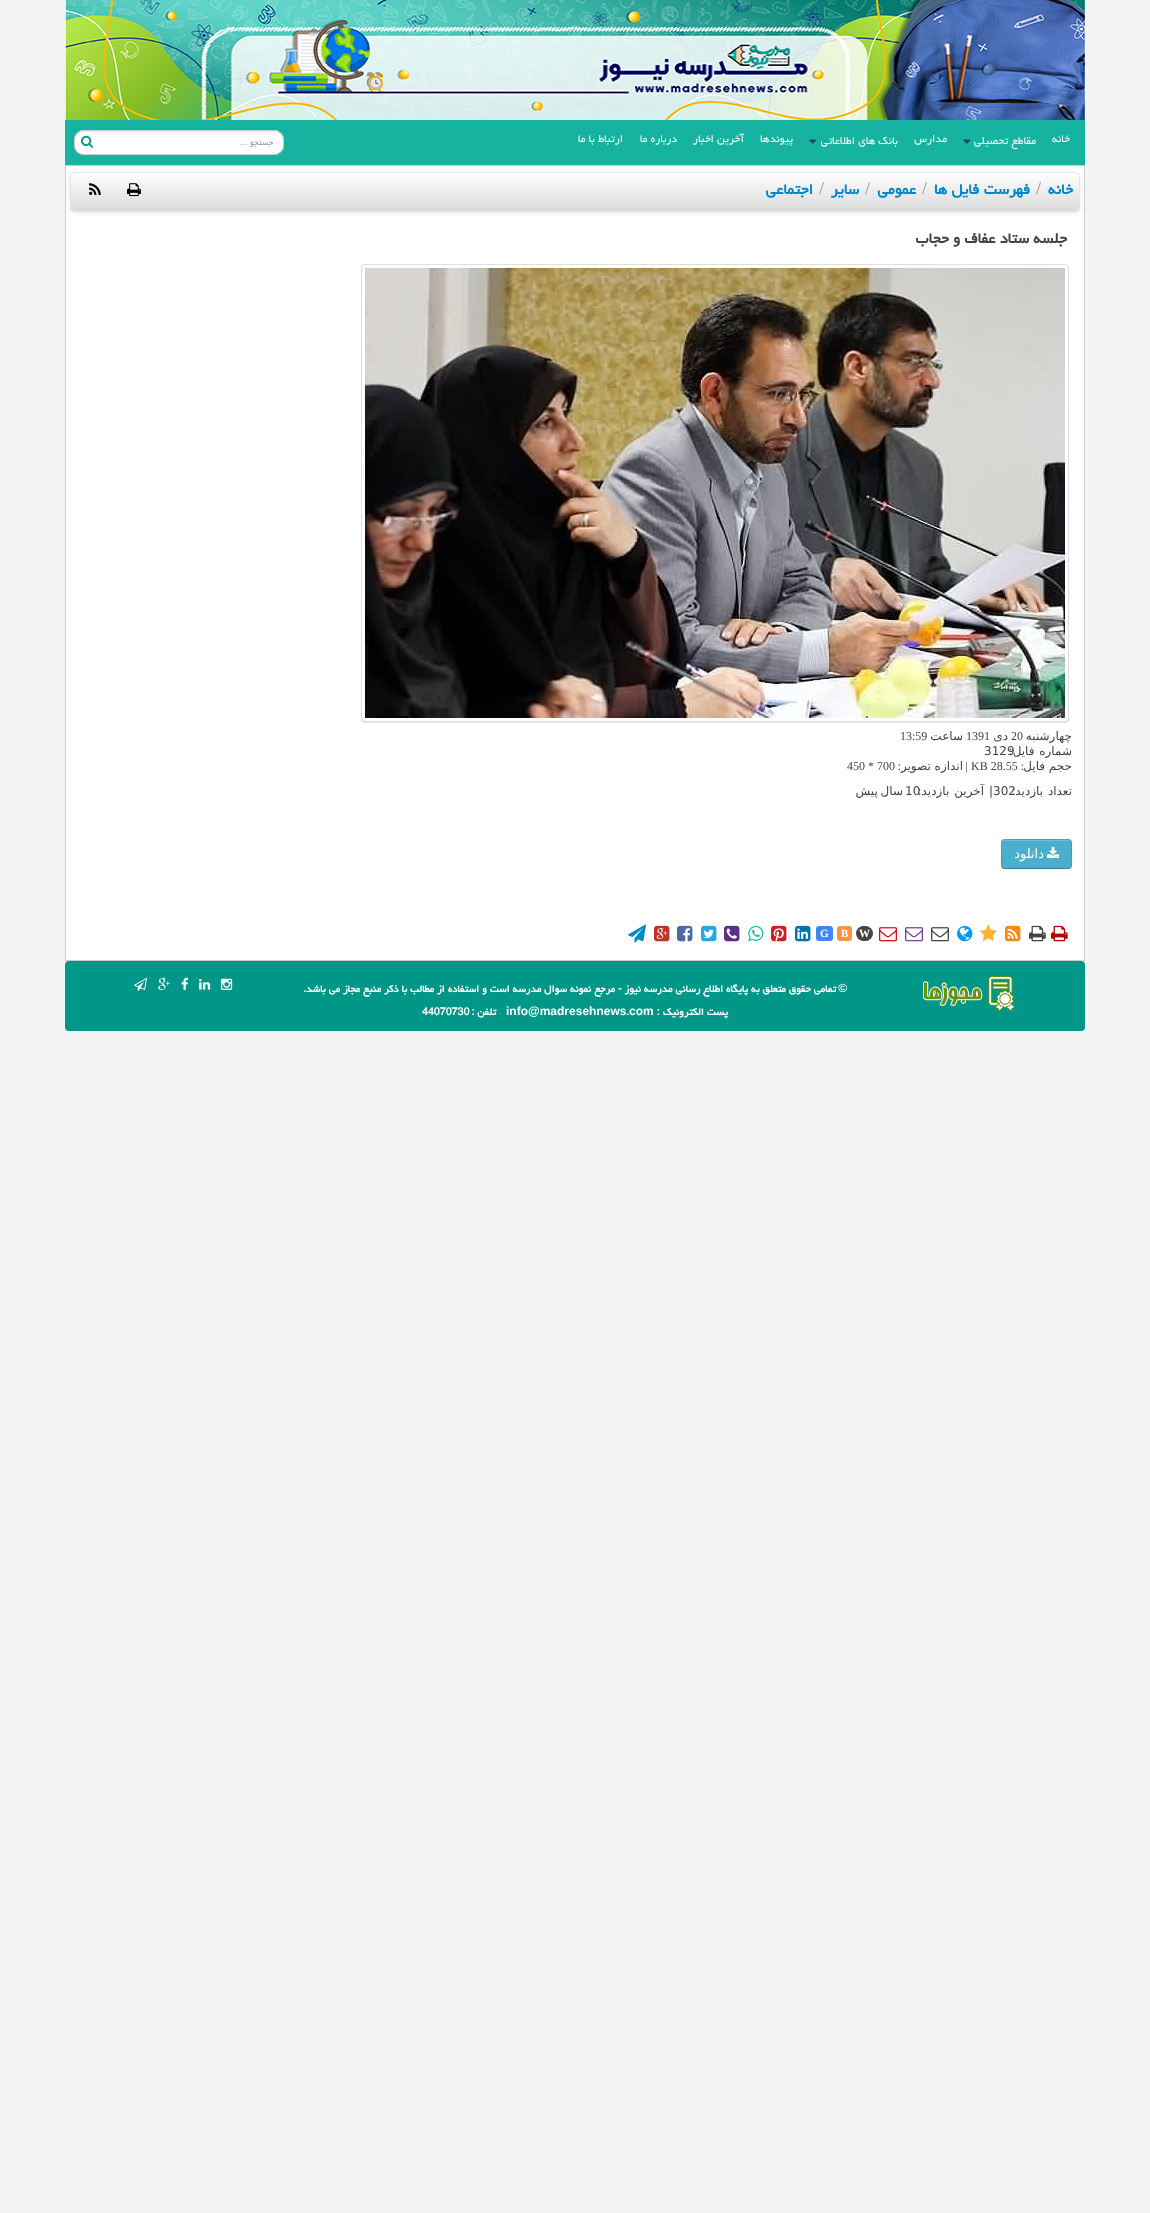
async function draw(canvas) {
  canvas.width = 1150;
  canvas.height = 2213;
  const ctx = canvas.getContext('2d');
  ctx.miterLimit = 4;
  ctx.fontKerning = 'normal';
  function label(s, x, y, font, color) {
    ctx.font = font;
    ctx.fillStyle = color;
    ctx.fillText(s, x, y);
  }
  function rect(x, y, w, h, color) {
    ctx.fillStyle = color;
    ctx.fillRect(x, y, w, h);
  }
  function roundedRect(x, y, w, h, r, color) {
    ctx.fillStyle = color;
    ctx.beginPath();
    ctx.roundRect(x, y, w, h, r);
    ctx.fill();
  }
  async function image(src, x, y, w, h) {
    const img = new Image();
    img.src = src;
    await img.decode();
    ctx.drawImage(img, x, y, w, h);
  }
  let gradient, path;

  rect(0, 0, 1150, 2213, '#f4f4f4');
  await image('assets/img1.png', 65, 0, 1020, 120);
  rect(65, 120, 1020, 45, '#17b3a1');
  ctx.direction = 'rtl';
  label('خانه', 1070, 142, '13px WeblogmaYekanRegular', '#f4f4f4');
  label('مقاطع تحصیلی', 1036, 144, '13px WeblogmaYekanRegular', '#f4f4f4');
  await image('assets/img2.png', 963, 139, 8, 5);
  label('مدارس', 947, 142, '13px WeblogmaYekanRegular', '#f4f4f4');
  label('بانک های اطلاعاتی', 898, 144, '13px WeblogmaYekanRegular', '#f4f4f4');
  await image('assets/img2.png', 809, 139, 8, 5);
  label('پیوندها', 793, 142, '13px WeblogmaYekanRegular', '#f4f4f4');
  label('آخرین اخبار', 744, 142, '13px WeblogmaYekanRegular', '#f4f4f4');
  label('درباره ما', 677, 142, '13px WeblogmaYekanRegular', '#f4f4f4');
  label('ارتباط با ما', 623, 142, '13px WeblogmaYekanRegular', '#f4f4f4');
  roundedRect(74, 130, 210, 25, 10, '#fff');
  ctx.fillStyle = '#ececec';
  path = new Path2D('M84 132H274C279 132 283 136 283 141V140C283 135 279 131 274 131H84C79 131 75 135 75 140V141C75 136 79 132 84 132Z');
  ctx.fill(path);
  ctx.beginPath();
  ctx.roundRect(74.5, 130.5, 209, 24, 9.5);
  ctx.strokeStyle = '#ccc';
  ctx.stroke();
  label('جستجو ...', 273, 145, '10px WeblogmaYekanRegular', '#999');
  await image('assets/img3.png', 81, 135, 12, 13);
  ctx.strokeRect(65.5, 165.5, 1019, 795);
  rect(66, 166, 1018, 794, '#fff');
  ctx.fillStyle = '#0000001a';
  ctx.filter = 'blur(2.5px)';
  ctx.beginPath();
  ctx.roundRect(70, 173, 1010, 40, 5);
  ctx.fill();
  ctx.filter = 'none';
  ctx.save();
  ctx.beginPath();
  ctx.roundRect(70, 172, 1010, 40, 5);
  ctx.clip();
  gradient = ctx.createLinearGradient(575, 173, 575, 211);
  gradient.addColorStop(0, '#fff');
  gradient.addColorStop(1, '#dadada');
  ctx.fillStyle = gradient;
  ctx.fillRect(70, 173, 1010, 38);
  ctx.restore();
  ctx.beginPath();
  ctx.roundRect(70.5, 172.5, 1009, 39, 4.5);
  ctx.strokeStyle = '#e5e5e5';
  ctx.stroke();
  label('خانه', 1073, 194, 'bold 18px WeblogmaYekanRegular', '#08c');
  ctx.direction = 'ltr';
  label('/', 1036, 194, 'bold 18px Liberation Serif', '#aaa');
  ctx.direction = 'rtl';
  label('فهرست فایل ها', 1030, 194, 'bold 18px WeblogmaYekanRegular', '#08c');
  ctx.direction = 'ltr';
  label('/', 922, 194, 'bold 18px Liberation Serif', '#aaa');
  ctx.direction = 'rtl';
  label('عمومی', 916, 194, 'bold 18px WeblogmaYekanRegular', '#08c');
  ctx.direction = 'ltr';
  label('/', 865, 194, 'bold 18px Liberation Serif', '#aaa');
  ctx.direction = 'rtl';
  label('سایر', 859, 194, 'bold 18px WeblogmaYekanRegular', '#08c');
  ctx.direction = 'ltr';
  label('/', 819, 194, 'bold 18px Liberation Serif', '#aaa');
  ctx.direction = 'rtl';
  label('اجتماعی', 813, 194, 'bold 18px WeblogmaYekanRegular', '#08c');
  await image('assets/img4.png', 127, 183, 14, 14);
  await image('assets/img5.png', 89, 183, 12, 12);
  label('جلسه ستاد عفاف و حجاب', 1067, 243, 'bold 18px WeblogmaYekanRegular', '#444');
  ctx.fillStyle = '#0000001a';
  ctx.filter = 'blur(0.5px)';
  ctx.beginPath();
  ctx.roundRect(361, 265, 708, 458, 4);
  ctx.fill();
  ctx.filter = 'none';
  ctx.fillStyle = '#fff';
  ctx.beginPath();
  ctx.roundRect(361.5, 264.5, 707, 457, 3.5);
  ctx.fill();
  ctx.strokeStyle = '#ddd';
  ctx.stroke();
  await image('assets/img6.png', 365, 268, 700, 450);
  label('چهارشنبه', 1072, 740, '12px DejaVu Sans', '#444');
  ctx.direction = 'ltr';
  label('20', 1011, 740, '12px Liberation Serif', '#444');
  ctx.direction = 'rtl';
  label('دی', 1008, 740, '12px DejaVu Sans', '#444');
  ctx.direction = 'ltr';
  label('1391', 966, 740, '12px Liberation Serif', '#444');
  ctx.direction = 'rtl';
  label('ساعت', 963, 740, '12px DejaVu Sans', '#444');
  ctx.direction = 'ltr';
  label('13:59', 900, 740, '12px Liberation Serif', '#444');
  label('3129', 984, 755, '12px DejaVu Sans', '#444');
  ctx.wordSpacing = '1px';
  ctx.direction = 'rtl';
  label('شماره فایل:', 1072, 755, '12px DejaVu Sans', '#444');
  ctx.wordSpacing = '0px';
  label('حجم فایل', 1072, 770, '12px DejaVu Sans', '#444');
  label(':', 1024, 770, '12px Liberation Serif', '#444');
  ctx.direction = 'ltr';
  label('KB 28.55', 971, 770, '12px Liberation Serif', '#444');
  ctx.direction = 'rtl';
  label('|', 968, 770, '12px Liberation Serif', '#444');
  label(':', 901, 770, '12px Liberation Serif', '#444');
  label('اندازه تصویر', 963, 770, '12px DejaVu Sans', '#444');
  ctx.direction = 'ltr';
  label('450 * 700', 847, 770, '12px Liberation Serif', '#444');
  label('|302', 989, 795, '12px DejaVu Sans', '#444');
  ctx.wordSpacing = '1px';
  ctx.direction = 'rtl';
  label('تعداد بازدید:', 1072, 795, '12px DejaVu Sans', '#444');
  label('آخرین بازدید:', 984, 795, '12px DejaVu Sans', '#444');
  ctx.wordSpacing = '0px';
  ctx.direction = 'ltr';
  label('10', 905, 795, '12px DejaVu Sans', '#444');
  ctx.wordSpacing = '-1px';
  ctx.direction = 'rtl';
  label('سال پیش', 903, 795, '12px DejaVu Sans', '#444');
  ctx.fillStyle = '#0000000d';
  ctx.filter = 'blur(1px)';
  ctx.beginPath();
  ctx.roundRect(1001, 840, 71, 30, 4);
  ctx.fill();
  ctx.filter = 'none';
  roundedRect(1001, 839, 71, 30, 4, '#49afcd');
  ctx.fillStyle = '#6dbfd7';
  path = new Path2D('M1005 841H1068C1070 841 1071 842 1071 844C1071 837 1062 840 1058 840H1016C1011 840 1002 837 1002 844C1002 842 1003 841 1005 841Z');
  ctx.fill(path);
  path = new Path2D('M1070.5 867.5L1068.5 868.5H1004.5L1002.5 867.5');
  ctx.strokeStyle = '#00000040';
  ctx.stroke(path);
  path = new Path2D('M1002.5 867.5C1000.5 865.5 1001.5 857 1001.5 854C1001.5 838 999 839.5 1015.5 839.5H1057.5C1074 839.5 1071.5 838 1071.5 854C1071.5 857 1072.5 865.5 1070.5 867.5');
  ctx.strokeStyle = '#0000001a';
  ctx.stroke(path);
  await image('assets/img7.png', 1047, 846, 13, 12);
  ctx.wordSpacing = '0px';
  label('دانلود', 1044, 858, '13px DejaVu Sans', '#fff');
  await image('assets/img8.png', 1051, 925, 17, 17);
  await image('assets/img9.png', 1029, 925, 17, 17);
  await image('assets/img10.png', 1005, 925, 16, 17);
  await image('assets/img11.png', 980, 924, 17, 17);
  await image('assets/img12.png', 957, 925, 16, 17);
  await image('assets/img13.png', 931, 927, 18, 15);
  await image('assets/img14.png', 905, 927, 18, 15);
  await image('assets/img15.png', 879, 927, 18, 15);
  roundedRect(856, 926, 17, 15, 7.5, '#444');
  ctx.direction = 'ltr';
  label('W', 859, 937, 'bold 11px Liberation Serif', '#fff');
  roundedRect(837, 926, 15, 15, 3, '#fb9341');
  label('B', 841, 937, 'bold 11px Liberation Serif', '#fff');
  roundedRect(816, 926, 17, 15, 3, '#4285f4');
  label('G', 820, 937, 'bold 11px Liberation Serif', '#fff');
  await image('assets/img16.png', 795, 925, 16, 17);
  await image('assets/img17.png', 771, 925, 16, 17);
  await image('assets/img18.png', 748, 925, 16, 17);
  await image('assets/img19.png', 724, 925, 16, 17);
  await image('assets/img20.png', 701, 925, 16, 17);
  await image('assets/img21.png', 677, 925, 16, 17);
  await image('assets/img22.png', 654, 925, 16, 17);
  await image('assets/img23.png', 628, 924, 18, 19);
  roundedRect(65, 961, 1020, 70, 4, '#009788');
  await image('assets/img24.png', 923, 976, 92, 35);
  ctx.direction = 'rtl';
  label('©', 847, 992, 'bold 12px Liberation Sans', '#fff');
  label('تمامی حقوق متعلق به پایگاه اطلاع رسانی مدرسه نیوز - مرجع نمونه سوال مدرسه است و استفاده از مطالب با ذکر منبع مجاز می باشد.', 836, 992, 'bold 12px WeblogmaYekanRegular', '#fff');
  await image('assets/img25.png', 221, 978, 12, 12);
  await image('assets/img26.png', 199, 978, 12, 12);
  await image('assets/img27.png', 181, 977, 7, 13);
  await image('assets/img28.png', 158, 977, 12, 13);
  await image('assets/img29.png', 134, 977, 13, 14);
  label('پست الکترونيک :', 728, 1015, 'bold 12px WeblogmaYekanRegular', '#fff');
  ctx.direction = 'ltr';
  label('com', 629, 1015, 'bold 12px Liberation Sans', '#fff');
  label('.', 626, 1015, 'bold 12px WeblogmaYekanRegular', '#fff');
  label('info@madresehnews', 506, 1015, 'bold 12px Liberation Sans', '#fff');
  ctx.direction = 'rtl';
  label('تلفن :', 496, 1015, 'bold 12px WeblogmaYekanRegular', '#fff');
  ctx.direction = 'ltr';
  label('44070730', 422, 1015, 'bold 12px WeblogmaYekanRegular', '#fff');
}

draw(document.querySelector('canvas'));
